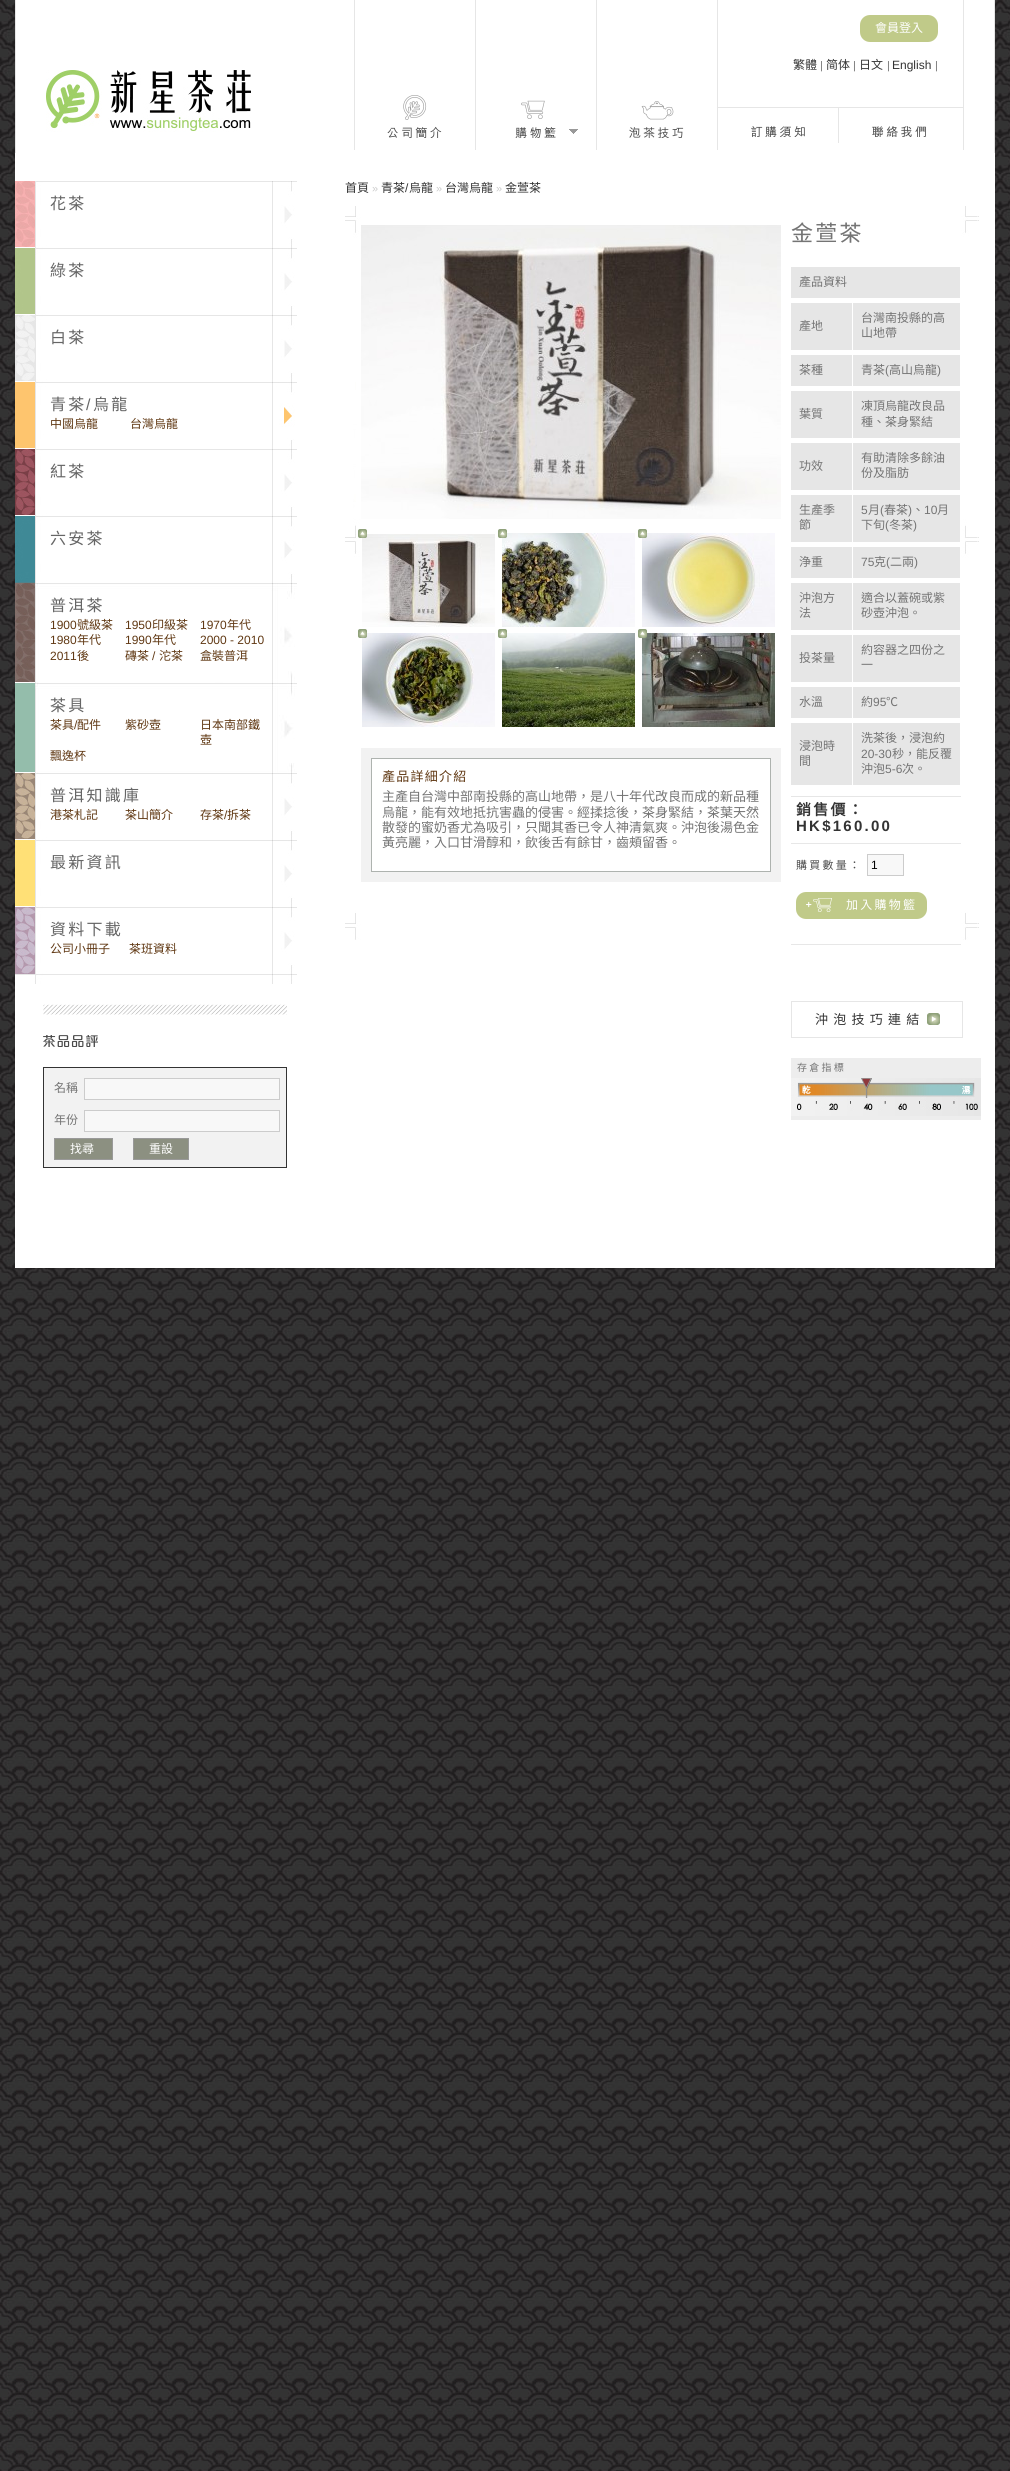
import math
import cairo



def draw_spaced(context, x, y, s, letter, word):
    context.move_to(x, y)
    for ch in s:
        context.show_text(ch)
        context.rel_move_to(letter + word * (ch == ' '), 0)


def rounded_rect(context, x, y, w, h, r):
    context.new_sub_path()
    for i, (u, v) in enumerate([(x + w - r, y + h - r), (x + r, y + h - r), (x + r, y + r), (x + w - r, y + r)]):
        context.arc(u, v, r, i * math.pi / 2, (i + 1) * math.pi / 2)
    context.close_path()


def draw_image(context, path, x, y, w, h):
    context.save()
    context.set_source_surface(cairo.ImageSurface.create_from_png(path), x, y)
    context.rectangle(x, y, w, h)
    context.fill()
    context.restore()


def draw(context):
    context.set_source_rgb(1, 1, 1)
    context.paint()
    draw_image(context, "images/1.png", 0, 0, 1010, 2471)
    context.set_source_rgb(1, 1, 1)
    context.rectangle(15, 0, 980, 1268)
    context.fill()
    context.set_source_rgb(230 / 255, 230 / 255, 230 / 255)
    context.rectangle(994, 0, 1, 153)
    context.fill()
    context.rectangle(15, 0, 1, 153)
    context.fill()
    context.rectangle(354, 0, 1, 150)
    context.fill()
    draw_image(context, "images/2.png", 387, 95, 55, 43)
    context.rectangle(475, 0, 1, 150)
    context.fill()
    draw_image(context, "images/3.png", 515, 100, 41, 38)
    draw_image(context, "images/4.png", 569, 129, 9, 5)
    context.rectangle(596, 0, 1, 150)
    context.fill()
    draw_image(context, "images/5.png", 629, 101, 55, 37)
    context.rectangle(963, 0, 1, 150)
    context.fill()
    context.rectangle(717, 0, 1, 150)
    context.fill()
    context.rectangle(718, 107, 245, 1)
    context.fill()
    context.set_source_rgb(192 / 255, 202 / 255, 137 / 255)
    rounded_rect(context, 860, 15, 78, 27, 10)
    context.fill()
    context.set_source_rgb(230 / 255, 230 / 255, 230 / 255)
    context.rectangle(838, 108, 1, 35)
    context.fill()
    draw_image(context, "images/6.png", 751, 126, 54, 11)
    draw_image(context, "images/7.png", 872, 126, 54, 11)
    draw_image(context, "images/8.png", 46, 70, 205, 62)
    draw_image(context, "images/9.png", 15, 181, 282, 67)
    draw_image(context, "images/10.png", 15, 181, 20, 66)
    draw_image(context, "images/9.png", 15, 248, 282, 67)
    draw_image(context, "images/11.png", 15, 248, 20, 66)
    draw_image(context, "images/9.png", 15, 315, 282, 67)
    draw_image(context, "images/12.png", 15, 315, 20, 66)
    draw_image(context, "images/13.png", 15, 382, 282, 67)
    context.set_source_rgb(254 / 255, 197 / 255, 110 / 255)
    context.rectangle(15, 382, 20, 66)
    context.fill()
    draw_image(context, "images/9.png", 15, 449, 282, 67)
    draw_image(context, "images/14.png", 15, 449, 20, 66)
    draw_image(context, "images/15.png", 35, 516, 262, 67)
    draw_image(context, "images/16.png", 15, 516, 20, 67)
    draw_image(context, "images/17.png", 15, 583, 282, 100)
    draw_image(context, "images/18.png", 15, 583, 20, 99)
    draw_image(context, "images/19.png", 15, 683, 282, 90)
    context.set_source_rgb(148 / 255, 189 / 255, 171 / 255)
    context.rectangle(15, 683, 20, 89)
    context.fill()
    draw_image(context, "images/9.png", 15, 773, 282, 67)
    draw_image(context, "images/20.png", 15, 773, 20, 66)
    draw_image(context, "images/9.png", 15, 840, 282, 67)
    draw_image(context, "images/21.png", 15, 840, 20, 66)
    draw_image(context, "images/15.png", 35, 907, 262, 67)
    draw_image(context, "images/22.png", 15, 907, 20, 67)
    draw_image(context, "images/23.png", 15, 974, 282, 10)
    draw_image(context, "images/24.png", 43, 1004, 244, 11)
    draw_image(context, "images/25.png", 43, 1035, 55, 12)
    context.set_source_rgb(242 / 255, 242 / 255, 242 / 255)
    context.rectangle(43.5, 1067.5, 243, 100)
    context.fill_preserve()
    context.set_source_rgb(51 / 255, 51 / 255, 51 / 255)
    context.set_line_width(1)
    context.stroke()
    context.set_source_rgb(248 / 255, 248 / 255, 248 / 255)
    context.rectangle(84.5, 1078.5, 195, 21)
    context.fill_preserve()
    context.set_source_rgb(204 / 255, 204 / 255, 204 / 255)
    context.stroke()
    context.set_source_rgb(248 / 255, 248 / 255, 248 / 255)
    context.rectangle(84.5, 1110.5, 195, 21)
    context.fill_preserve()
    context.set_source_rgb(204 / 255, 204 / 255, 204 / 255)
    context.stroke()
    context.set_source_rgb(140 / 255, 144 / 255, 129 / 255)
    context.rectangle(54.5, 1138.5, 58, 21)
    context.fill_preserve()
    context.set_source_rgb(153 / 255, 153 / 255, 153 / 255)
    context.stroke()
    context.set_source_rgb(140 / 255, 144 / 255, 129 / 255)
    context.rectangle(133.5, 1138.5, 55, 21)
    context.fill_preserve()
    context.set_source_rgb(153 / 255, 153 / 255, 153 / 255)
    context.stroke()
    draw_image(context, "images/26.png", 345, 206, 634, 734)
    draw_image(context, "images/27.png", 361, 225, 420, 294)
    draw_image(context, "images/29.png", 362, 534, 133, 93)
    draw_image(context, "images/28.png", 358, 529, 9, 9)
    draw_image(context, "images/31.png", 502, 533, 133, 94)
    draw_image(context, "images/30.png", 498, 529, 9, 9)
    draw_image(context, "images/33.png", 642, 533, 133, 94)
    draw_image(context, "images/32.png", 638, 529, 9, 9)
    draw_image(context, "images/35.png", 362, 633, 133, 94)
    draw_image(context, "images/34.png", 358, 629, 9, 9)
    draw_image(context, "images/37.png", 502, 633, 133, 94)
    draw_image(context, "images/36.png", 498, 629, 9, 9)
    draw_image(context, "images/39.png", 642, 633, 133, 94)
    draw_image(context, "images/38.png", 638, 629, 9, 9)
    context.set_source_rgb(242 / 255, 242 / 255, 242 / 255)
    context.rectangle(361, 748, 420, 134)
    context.fill()
    context.set_source_rgb(1, 1, 1)
    context.rectangle(371.5, 758.5, 399, 113)
    context.fill_preserve()
    context.set_source_rgb(174 / 255, 179 / 255, 175 / 255)
    context.stroke()
    context.set_source_rgb(230 / 255, 230 / 255, 230 / 255)
    context.rectangle(791, 267, 169, 518)
    context.fill()
    context.set_source_rgb(1, 1, 1)
    context.rectangle(852, 300, 1, 488)
    context.fill()
    context.rectangle(789, 298, 174, 5)
    context.fill()
    context.rectangle(789, 350, 174, 5)
    context.fill()
    context.rectangle(789, 386, 174, 5)
    context.fill()
    context.rectangle(789, 438, 174, 5)
    context.fill()
    context.rectangle(789, 490, 174, 5)
    context.fill()
    context.rectangle(789, 542, 174, 5)
    context.fill()
    context.rectangle(789, 578, 174, 5)
    context.fill()
    context.rectangle(789, 630, 174, 5)
    context.fill()
    context.rectangle(789, 682, 174, 5)
    context.fill()
    context.rectangle(789, 718, 174, 5)
    context.fill()
    context.set_source_rgb(230 / 255, 230 / 255, 230 / 255)
    context.rectangle(791, 796, 170, 1)
    context.fill()
    context.set_source_rgb(231 / 255, 231 / 255, 231 / 255)
    context.rectangle(791, 843, 170, 1)
    context.fill()
    context.rectangle(791, 944, 170, 1)
    context.fill()
    context.set_source_rgb(248 / 255, 248 / 255, 248 / 255)
    context.rectangle(867.5, 854.5, 36, 21)
    context.fill_preserve()
    context.set_source_rgb(204 / 255, 204 / 255, 204 / 255)
    context.stroke()
    context.set_source_rgb(192 / 255, 202 / 255, 137 / 255)
    rounded_rect(context, 796, 892, 131, 27, 10)
    context.fill()
    draw_image(context, "images/40.png", 806, 898, 26, 14)
    draw_image(context, "images/41.png", 927, 1013, 13, 12)
    context.rectangle(791.5, 1001.5, 171, 36)
    context.set_source_rgb(230 / 255, 230 / 255, 230 / 255)
    context.stroke()
    context.set_source_rgb(237 / 255, 237 / 255, 237 / 255)
    context.rectangle(791, 1058, 190, 62)
    context.fill()
    draw_image(context, "images/42.png", 791, 1078, 190, 38)
    draw_image(context, "images/43.png", 861, 1078, 11, 20)
    context.select_font_face("Noto Sans CJK HK")
    context.set_font_size(12)
    context.set_source_rgb(1, 1, 1)
    context.move_to(875, 32)
    context.show_text("會員登入")
    context.set_source_rgb(51 / 255, 51 / 255, 51 / 255)
    context.move_to(793, 69)
    context.show_text("繁體")
    context.select_font_face("Liberation Sans")
    context.set_font_size(11)
    context.set_source_rgb(116 / 255, 116 / 255, 116 / 255)
    context.move_to(820, 69)
    context.show_text("|")
    context.select_font_face("Noto Sans CJK HK")
    context.set_font_size(12)
    context.set_source_rgb(51 / 255, 51 / 255, 51 / 255)
    context.move_to(826, 69)
    context.show_text("简体")
    context.select_font_face("Liberation Sans")
    context.set_font_size(11)
    context.set_source_rgb(116 / 255, 116 / 255, 116 / 255)
    context.move_to(853, 69)
    context.show_text("|")
    context.select_font_face("Noto Sans CJK HK")
    context.set_font_size(12)
    context.set_source_rgb(51 / 255, 51 / 255, 51 / 255)
    context.move_to(859, 69)
    context.show_text("日文")
    context.select_font_face("Liberation Sans")
    context.set_font_size(11)
    context.set_source_rgb(116 / 255, 116 / 255, 116 / 255)
    context.move_to(887, 69)
    context.show_text("|")
    context.set_font_size(12)
    context.set_source_rgb(51 / 255, 51 / 255, 51 / 255)
    context.move_to(892, 69)
    context.show_text("English")
    context.set_font_size(11)
    context.set_source_rgb(116 / 255, 116 / 255, 116 / 255)
    context.move_to(935, 69)
    context.show_text("|")
    context.select_font_face("Noto Sans CJK HK")
    context.set_font_size(16)
    context.set_source_rgb(102 / 255, 102 / 255, 102 / 255)
    draw_spaced(context, 50, 209, "花茶", 2.25, 0)
    draw_spaced(context, 50, 276, "綠茶", 2.25, 0)
    draw_spaced(context, 50, 343, "白茶", 2.25, 0)
    draw_spaced(context, 50, 410, "青茶", 2.25, 0)
    context.select_font_face("Liberation Sans")
    draw_spaced(context, 86, 410, "/", 2.25, 0)
    context.select_font_face("Noto Sans CJK HK")
    draw_spaced(context, 93, 410, "烏龍", 2.25, 0)
    context.set_font_size(12)
    context.set_source_rgb(96 / 255, 56 / 255, 19 / 255)
    context.move_to(50, 428)
    context.show_text("中國烏龍")
    context.move_to(130, 428)
    context.show_text("台灣烏龍")
    context.set_font_size(16)
    context.set_source_rgb(102 / 255, 102 / 255, 102 / 255)
    draw_spaced(context, 50, 477, "紅茶", 2.25, 0)
    draw_spaced(context, 50, 544, "六安茶", 2.25, 0)
    draw_spaced(context, 50, 611, "普洱茶", 2.25, 0)
    context.select_font_face("Liberation Sans")
    context.set_font_size(12)
    context.set_source_rgb(96 / 255, 56 / 255, 19 / 255)
    context.move_to(50, 629)
    context.show_text("1900")
    context.select_font_face("Noto Sans CJK HK")
    context.move_to(77, 629)
    context.show_text("號級茶")
    context.select_font_face("Liberation Sans")
    context.move_to(125, 629)
    context.show_text("1950")
    context.select_font_face("Noto Sans CJK HK")
    context.move_to(152, 629)
    context.show_text("印級茶")
    context.select_font_face("Liberation Sans")
    context.move_to(200, 629)
    context.show_text("1970")
    context.select_font_face("Noto Sans CJK HK")
    context.move_to(227, 629)
    context.show_text("年代")
    context.select_font_face("Liberation Sans")
    context.move_to(50, 644)
    context.show_text("1980")
    context.select_font_face("Noto Sans CJK HK")
    context.move_to(77, 644)
    context.show_text("年代")
    context.select_font_face("Liberation Sans")
    context.move_to(125, 644)
    context.show_text("1990")
    context.select_font_face("Noto Sans CJK HK")
    context.move_to(152, 644)
    context.show_text("年代")
    context.select_font_face("Liberation Sans")
    context.move_to(200, 644)
    context.show_text("2000 - 2010")
    context.move_to(50, 660)
    context.show_text("2011")
    context.select_font_face("Noto Sans CJK HK")
    context.move_to(77, 660)
    context.show_text("後")
    context.move_to(125, 660)
    context.show_text("磚茶")
    context.select_font_face("Liberation Sans")
    context.move_to(152, 660)
    context.show_text("/")
    context.select_font_face("Noto Sans CJK HK")
    context.move_to(159, 660)
    context.show_text("沱茶")
    context.move_to(200, 660)
    context.show_text("盒裝普洱")
    context.set_font_size(16)
    context.set_source_rgb(102 / 255, 102 / 255, 102 / 255)
    draw_spaced(context, 50, 711, "茶具", 2.25, 0)
    context.set_font_size(12)
    context.set_source_rgb(96 / 255, 56 / 255, 19 / 255)
    context.move_to(50, 729)
    context.show_text("茶具")
    context.select_font_face("Liberation Sans")
    context.move_to(74, 729)
    context.show_text("/")
    context.select_font_face("Noto Sans CJK HK")
    context.move_to(77, 729)
    context.show_text("配件")
    context.move_to(125, 729)
    context.show_text("紫砂壺")
    context.move_to(200, 729)
    context.show_text("日本南部鐵")
    context.move_to(200, 744)
    context.show_text("壺")
    context.move_to(50, 760)
    context.show_text("飄逸杯")
    context.set_font_size(16)
    context.set_source_rgb(102 / 255, 102 / 255, 102 / 255)
    draw_spaced(context, 50, 801, "普洱知識庫", 2.25, 0)
    context.set_font_size(12)
    context.set_source_rgb(96 / 255, 56 / 255, 19 / 255)
    context.move_to(50, 819)
    context.show_text("港茶札記")
    context.move_to(125, 819)
    context.show_text("茶山簡介")
    context.move_to(200, 819)
    context.show_text("存茶")
    context.select_font_face("Liberation Sans")
    context.move_to(224, 819)
    context.show_text("/")
    context.select_font_face("Noto Sans CJK HK")
    context.move_to(227, 819)
    context.show_text("拆茶")
    context.set_font_size(16)
    context.set_source_rgb(102 / 255, 102 / 255, 102 / 255)
    draw_spaced(context, 50, 868, "最新資訊", 2.25, 0)
    draw_spaced(context, 50, 935, "資料下載", 2.25, 0)
    context.set_font_size(12)
    context.set_source_rgb(96 / 255, 56 / 255, 19 / 255)
    context.move_to(50, 953)
    context.show_text("公司小冊子")
    context.move_to(129, 953)
    context.show_text("茶班資料")
    context.set_source_rgb(116 / 255, 116 / 255, 116 / 255)
    context.move_to(54, 1092)
    context.show_text("名稱")
    context.move_to(54, 1124)
    context.show_text("年份")
    context.set_source_rgb(1, 1, 1)
    context.move_to(70, 1153)
    context.show_text("找尋")
    context.move_to(149, 1153)
    context.show_text("重設")
    context.set_source_rgb(51 / 255, 51 / 255, 51 / 255)
    context.move_to(345, 192)
    context.show_text("首頁")
    context.select_font_face("Liberation Sans")
    context.set_font_size(11)
    context.set_source_rgb(204 / 255, 204 / 255, 204 / 255)
    context.move_to(372, 192)
    context.show_text("»")
    context.select_font_face("Noto Sans CJK HK")
    context.set_font_size(12)
    context.set_source_rgb(51 / 255, 51 / 255, 51 / 255)
    context.move_to(381, 192)
    context.show_text("青茶")
    context.select_font_face("Liberation Sans")
    context.move_to(405, 192)
    context.show_text("/")
    context.select_font_face("Noto Sans CJK HK")
    context.move_to(409, 192)
    context.show_text("烏龍")
    context.select_font_face("Liberation Sans")
    context.set_font_size(11)
    context.set_source_rgb(204 / 255, 204 / 255, 204 / 255)
    context.move_to(436, 192)
    context.show_text("»")
    context.select_font_face("Noto Sans CJK HK")
    context.set_font_size(12)
    context.set_source_rgb(51 / 255, 51 / 255, 51 / 255)
    context.move_to(445, 192)
    context.show_text("台灣烏龍")
    context.select_font_face("Liberation Sans")
    context.set_font_size(11)
    context.set_source_rgb(204 / 255, 204 / 255, 204 / 255)
    context.move_to(496, 192)
    context.show_text("»")
    context.select_font_face("Noto Sans CJK HK")
    context.set_font_size(12)
    context.set_source_rgb(51 / 255, 51 / 255, 51 / 255)
    context.move_to(505, 192)
    context.show_text("金萱茶")
    context.set_font_size(13)
    context.set_source_rgb(96 / 255, 56 / 255, 19 / 255)
    draw_spaced(context, 382, 781, "產品詳細介紹", 1.25, 0)
    context.set_source_rgb(116 / 255, 116 / 255, 116 / 255)
    context.move_to(382, 801)
    context.show_text("主產自台灣中部南投縣的高山地帶，是八十年代改良而成的新品種")
    context.move_to(382, 817)
    context.show_text("烏龍，能有效地抵抗害蟲的侵害。經揉捻後，茶身緊結，茶葉天然")
    context.move_to(382, 832)
    context.show_text("散發的蜜奶香尤為吸引，只聞其香已令人神清氣爽。沖泡後湯色金")
    context.move_to(382, 847)
    context.show_text("黃亮麗，入口甘滑醇和，飲後舌有餘甘，齒頰留香。")
    context.set_font_size(22)
    draw_spaced(context, 791, 241, "金萱茶", 2.25, 0)
    context.set_font_size(12)
    context.move_to(799, 286)
    context.show_text("產品資料")
    context.move_to(799, 330)
    context.show_text("產地")
    context.move_to(861, 322)
    context.show_text("台灣南投縣的高")
    context.move_to(861, 337)
    context.show_text("山地帶")
    context.move_to(799, 374)
    context.show_text("茶種")
    context.move_to(861, 374)
    context.show_text("青茶")
    context.select_font_face("Liberation Sans")
    context.move_to(885, 374)
    context.show_text("(")
    context.select_font_face("Noto Sans CJK HK")
    context.move_to(889, 374)
    context.show_text("高山烏龍")
    context.select_font_face("Liberation Sans")
    context.move_to(937, 374)
    context.show_text(")")
    context.select_font_face("Noto Sans CJK HK")
    context.move_to(799, 418)
    context.show_text("葉質")
    context.move_to(861, 410)
    context.show_text("凍頂烏龍改良品")
    context.move_to(861, 426)
    context.show_text("種、茶身緊結")
    context.move_to(799, 470)
    context.show_text("功效")
    context.move_to(861, 462)
    context.show_text("有助清除多餘油")
    context.move_to(861, 477)
    context.show_text("份及脂肪")
    context.move_to(799, 514)
    context.show_text("生產季")
    context.move_to(799, 529)
    context.show_text("節")
    context.select_font_face("Liberation Sans")
    context.move_to(861, 514)
    context.show_text("5")
    context.select_font_face("Noto Sans CJK HK")
    context.move_to(868, 514)
    context.show_text("月")
    context.select_font_face("Liberation Sans")
    context.move_to(880, 514)
    context.show_text("(")
    context.select_font_face("Noto Sans CJK HK")
    context.move_to(884, 514)
    context.show_text("春茶")
    context.select_font_face("Liberation Sans")
    context.move_to(908, 514)
    context.show_text(")")
    context.select_font_face("Noto Sans CJK HK")
    context.move_to(912, 514)
    context.show_text("、")
    context.select_font_face("Liberation Sans")
    context.move_to(924, 514)
    context.show_text("10")
    context.select_font_face("Noto Sans CJK HK")
    context.move_to(937, 514)
    context.show_text("月")
    context.move_to(861, 529)
    context.show_text("下旬")
    context.select_font_face("Liberation Sans")
    context.move_to(885, 529)
    context.show_text("(")
    context.select_font_face("Noto Sans CJK HK")
    context.move_to(889, 529)
    context.show_text("冬茶")
    context.select_font_face("Liberation Sans")
    context.move_to(913, 529)
    context.show_text(")")
    context.select_font_face("Noto Sans CJK HK")
    context.move_to(799, 566)
    context.show_text("浄重")
    context.select_font_face("Liberation Sans")
    context.move_to(861, 566)
    context.show_text("75")
    context.select_font_face("Noto Sans CJK HK")
    context.move_to(874, 566)
    context.show_text("克")
    context.select_font_face("Liberation Sans")
    context.move_to(886, 566)
    context.show_text("(")
    context.select_font_face("Noto Sans CJK HK")
    context.move_to(890, 566)
    context.show_text("二兩")
    context.select_font_face("Liberation Sans")
    context.move_to(914, 566)
    context.show_text(")")
    context.select_font_face("Noto Sans CJK HK")
    context.move_to(799, 602)
    context.show_text("沖泡方")
    context.move_to(799, 617)
    context.show_text("法")
    context.move_to(861, 602)
    context.show_text("適合以蓋碗或紫")
    context.move_to(861, 617)
    context.show_text("砂壺沖泡。")
    context.move_to(799, 662)
    context.show_text("投茶量")
    context.move_to(861, 654)
    context.show_text("約容器之四份之")
    context.move_to(861, 669)
    context.show_text("一")
    context.move_to(799, 706)
    context.show_text("水溫")
    context.move_to(861, 706)
    context.show_text("約")
    context.select_font_face("Liberation Sans")
    context.move_to(873, 706)
    context.show_text("95")
    context.select_font_face("Noto Sans CJK HK")
    context.move_to(886, 706)
    context.show_text("℃")
    context.move_to(799, 750)
    context.show_text("浸泡時")
    context.move_to(799, 765)
    context.show_text("間")
    context.move_to(861, 742)
    context.show_text("洗茶後，浸泡約")
    context.select_font_face("Liberation Sans")
    context.move_to(861, 758)
    context.show_text("20-30")
    context.select_font_face("Noto Sans CJK HK")
    context.move_to(892, 758)
    context.show_text("秒，能反覆")
    context.move_to(861, 773)
    context.show_text("沖泡")
    context.select_font_face("Liberation Sans")
    context.move_to(885, 773)
    context.show_text("5-6")
    context.select_font_face("Noto Sans CJK HK")
    context.move_to(902, 773)
    context.show_text("次。")
    context.select_font_face("Noto Sans CJK HK", cairo.FontSlant.NORMAL, cairo.FontWeight.BOLD)
    context.set_font_size(15)
    context.set_source_rgb(51 / 255, 51 / 255, 51 / 255)
    draw_spaced(context, 796, 815, "銷售價：", 2.25, 0)
    context.select_font_face("Liberation Sans", cairo.FontSlant.NORMAL, cairo.FontWeight.BOLD)
    draw_spaced(context, 796, 831, "HK$160.00", 2.25, 0)
    context.select_font_face("Noto Sans CJK HK")
    context.set_font_size(11)
    context.set_source_rgb(77 / 255, 77 / 255, 77 / 255)
    draw_spaced(context, 796, 869, "購買數量：", 2.25, 0)
    context.select_font_face("Liberation Sans")
    context.set_font_size(12)
    context.set_source_rgb(0, 0, 0)
    context.move_to(871, 869)
    context.show_text("1")
    context.select_font_face("Noto Sans CJK HK")
    context.set_source_rgb(1, 1, 1)
    draw_spaced(context, 846, 909, "加入購物籃", 2.25, 0)
    context.set_font_size(13)
    context.set_source_rgb(51 / 255, 51 / 255, 51 / 255)
    draw_spaced(context, 815, 1024, "沖泡技巧連結", 5.25, 0)
    context.set_font_size(10)
    context.set_source_rgb(116 / 255, 116 / 255, 116 / 255)
    draw_spaced(context, 797, 1071, "存倉指標", 2.25, 0)


surface = cairo.ImageSurface(cairo.Format.RGB24, 1010, 2471)
context = cairo.Context(surface)
options = cairo.FontOptions()
options.set_hint_metrics(cairo.HintMetrics.OFF)
options.set_hint_style(cairo.HintStyle.NONE)
context.set_font_options(options)
context.set_miter_limit(4)
draw(context)
surface.write_to_png("out.png")
